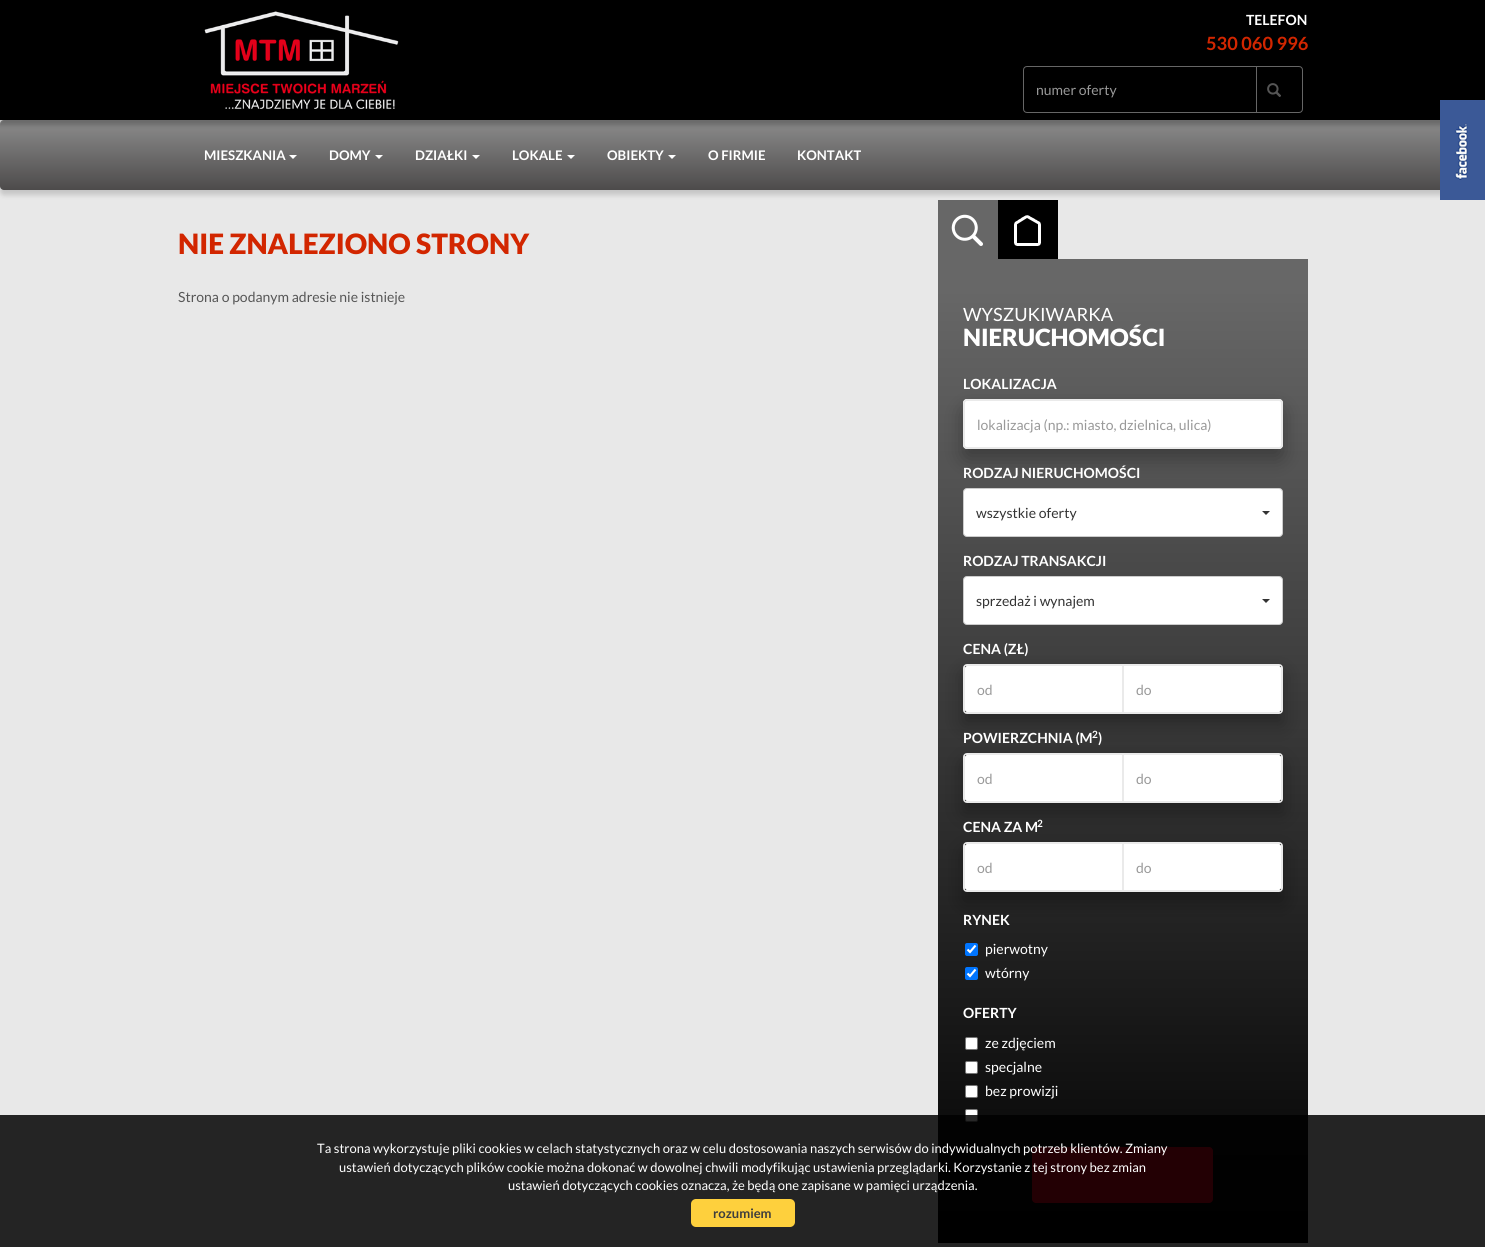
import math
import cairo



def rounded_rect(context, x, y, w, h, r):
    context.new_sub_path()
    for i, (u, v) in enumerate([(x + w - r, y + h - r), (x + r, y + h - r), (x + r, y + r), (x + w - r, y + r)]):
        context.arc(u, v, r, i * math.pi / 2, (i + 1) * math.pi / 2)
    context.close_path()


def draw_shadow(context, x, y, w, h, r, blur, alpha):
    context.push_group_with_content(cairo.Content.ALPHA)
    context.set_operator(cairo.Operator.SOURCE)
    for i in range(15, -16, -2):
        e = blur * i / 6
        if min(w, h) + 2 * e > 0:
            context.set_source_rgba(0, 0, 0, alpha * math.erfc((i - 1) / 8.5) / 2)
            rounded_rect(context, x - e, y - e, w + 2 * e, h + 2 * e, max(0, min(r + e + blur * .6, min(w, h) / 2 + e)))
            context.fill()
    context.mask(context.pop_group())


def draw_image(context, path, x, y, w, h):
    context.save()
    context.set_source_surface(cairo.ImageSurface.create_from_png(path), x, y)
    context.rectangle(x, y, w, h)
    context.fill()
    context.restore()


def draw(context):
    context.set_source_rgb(232 / 255, 232 / 255, 232 / 255)
    context.paint()
    context.set_source_rgb(103 / 255, 103 / 255, 103 / 255)
    context.rectangle(938, 200, 60, 59)
    context.fill()
    context.set_source_rgb(0, 0, 0)
    context.rectangle(998, 200, 60, 59)
    context.fill()
    context.set_source_rgb(0, 0, 0)
    draw_shadow(context, 0, 125, 1485, 70, 4, 2.5, 0.15)
    gradient = cairo.LinearGradient(743, 120, 743, 190)
    gradient.add_color_stop_rgba(0, 140 / 255, 140 / 255, 140 / 255, 1)
    gradient.add_color_stop_rgba(1, 77 / 255, 75 / 255, 75 / 255, 1)
    context.set_source(gradient)
    rounded_rect(context, 0, 120, 1485, 70, 4)
    context.fill()
    context.set_source_rgb(0, 0, 0)
    draw_shadow(context, 0, 5, 1485, 120, 0, 2.5, 0.25)
    context.set_source_rgb(0, 0, 0)
    context.rectangle(0, 0, 1485, 120)
    context.fill()
    draw_image(context, "images/1.png", 204, 11, 195, 98)
    context.new_path()
    context.move_to(1247.5, 66.5)
    context.line_to(1299, 66.5)
    context.curve_to(1301, 66.5, 1302.5, 68, 1302.5, 70)
    context.line_to(1302.5, 109)
    context.curve_to(1302.5, 111, 1301, 112.5, 1299, 112.5)
    context.line_to(1247.5, 112.5)
    context.close_path()
    context.set_source_rgb(102 / 255, 102 / 255, 102 / 255)
    context.set_line_width(1)
    context.stroke()
    context.set_source_rgb(0, 0, 0)
    context.new_path()
    context.move_to(1027, 66.5)
    context.line_to(1256.5, 66.5)
    context.line_to(1256.5, 112.5)
    context.line_to(1027, 112.5)
    context.curve_to(1025, 112.5, 1023.5, 111, 1023.5, 109)
    context.line_to(1023.5, 70)
    context.curve_to(1023.5, 68, 1025, 66.5, 1027, 66.5)
    context.close_path()
    context.fill_preserve()
    context.set_source_rgb(102 / 255, 102 / 255, 102 / 255)
    context.stroke()
    draw_image(context, "images/2.png", 1267, 83, 14, 14)
    context.set_source_rgb(1, 1, 1)
    context.new_path()
    context.move_to(289, 155)
    context.line_to(297, 155)
    context.line_to(293, 159)
    context.close_path()
    context.fill()
    context.new_path()
    context.move_to(375, 155)
    context.line_to(383, 155)
    context.line_to(379, 159)
    context.close_path()
    context.fill()
    context.new_path()
    context.move_to(472, 155)
    context.line_to(480, 155)
    context.line_to(476, 159)
    context.close_path()
    context.fill()
    context.new_path()
    context.move_to(567, 155)
    context.line_to(575, 155)
    context.line_to(571, 159)
    context.close_path()
    context.fill()
    context.new_path()
    context.move_to(668, 155)
    context.line_to(676, 155)
    context.line_to(672, 159)
    context.close_path()
    context.fill()
    context.set_source_rgb(59 / 255, 89 / 255, 151 / 255)
    context.rectangle(1440, 100, 45, 100)
    context.fill()
    draw_image(context, "images/3.png", 1454, 123, 14, 57)
    draw_image(context, "images/4.png", 951, 214, 32, 32)
    draw_image(context, "images/5.png", 1014, 215, 27, 31)
    context.set_source_rgb(103 / 255, 103 / 255, 103 / 255)
    context.rectangle(938, 259, 370, 30)
    context.fill()
    gradient = cairo.LinearGradient(1123, 289, 1123, 1243)
    gradient.add_color_stop_rgba(0, 103 / 255, 103 / 255, 103 / 255, 1)
    gradient.add_color_stop_rgba(1, 0, 0, 0, 1)
    context.set_source(gradient)
    context.rectangle(938, 289, 370, 954)
    context.fill()
    context.set_source_rgb(1, 1, 1)
    rounded_rect(context, 963, 399, 320, 50, 4)
    context.fill()
    context.save()
    context.set_fill_rule(cairo.FillRule.EVEN_ODD)
    context.new_path()
    context.move_to(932, 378)
    context.line_to(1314, 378)
    context.line_to(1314, 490)
    context.line_to(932, 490)
    context.close_path()
    context.move_to(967, 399)
    context.line_to(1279, 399)
    context.curve_to(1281, 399, 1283, 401, 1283, 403)
    context.line_to(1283, 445)
    context.curve_to(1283, 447, 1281, 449, 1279, 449)
    context.line_to(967, 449)
    context.curve_to(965, 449, 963, 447, 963, 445)
    context.line_to(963, 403)
    context.curve_to(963, 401, 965, 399, 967, 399)
    context.close_path()
    context.clip()
    context.set_source_rgb(0, 0, 0)
    draw_shadow(context, 963, 409, 320, 50, 4, 10, 0.3)
    context.restore()
    rounded_rect(context, 964, 400, 318, 48, 3)
    context.set_source_rgb(234 / 255, 234 / 255, 234 / 255)
    context.set_line_width(2)
    context.stroke()
    context.set_source_rgb(1, 1, 1)
    rounded_rect(context, 963.5, 488.5, 319, 48, 3.5)
    context.fill_preserve()
    context.set_source_rgb(204 / 255, 204 / 255, 204 / 255)
    context.set_line_width(1)
    context.stroke()
    context.set_source_rgb(51 / 255, 51 / 255, 51 / 255)
    context.new_path()
    context.move_to(1262, 511)
    context.line_to(1270, 511)
    context.line_to(1266, 515)
    context.close_path()
    context.fill()
    context.set_source_rgb(1, 1, 1)
    rounded_rect(context, 963.5, 576.5, 319, 48, 3.5)
    context.fill_preserve()
    context.set_source_rgb(204 / 255, 204 / 255, 204 / 255)
    context.stroke()
    context.set_source_rgb(51 / 255, 51 / 255, 51 / 255)
    context.new_path()
    context.move_to(1262, 599)
    context.line_to(1270, 599)
    context.line_to(1266, 603)
    context.close_path()
    context.fill()
    context.set_source_rgb(0, 0, 0)
    draw_shadow(context, 963, 674, 320, 50, 0, 10, 0.3)
    context.set_source_rgb(1, 1, 1)
    context.new_path()
    context.move_to(967, 666)
    context.line_to(1122, 666)
    context.line_to(1122, 712)
    context.line_to(967, 712)
    context.curve_to(966, 712, 965, 711, 965, 710)
    context.line_to(965, 668)
    context.curve_to(965, 667, 966, 666, 967, 666)
    context.close_path()
    context.fill()
    context.new_path()
    context.move_to(967, 664.5)
    context.line_to(1122.5, 664.5)
    context.line_to(1122.5, 713.5)
    context.line_to(967, 713.5)
    context.curve_to(965, 713.5, 963.5, 712, 963.5, 710)
    context.line_to(963.5, 668)
    context.curve_to(963.5, 666, 965, 664.5, 967, 664.5)
    context.close_path()
    context.set_source_rgb(234 / 255, 234 / 255, 234 / 255)
    context.stroke()
    context.rectangle(965, 665, 158, 1)
    context.fill()
    context.rectangle(965, 712, 158, 1)
    context.fill()
    context.rectangle(964, 666, 1, 46)
    context.fill()
    context.set_source_rgb(1, 1, 1)
    context.new_path()
    context.move_to(1124, 666)
    context.line_to(1279, 666)
    context.curve_to(1280, 666, 1281, 667, 1281, 668)
    context.line_to(1281, 710)
    context.curve_to(1281, 711, 1280, 712, 1279, 712)
    context.line_to(1124, 712)
    context.close_path()
    context.fill()
    context.new_path()
    context.move_to(1123.5, 664.5)
    context.line_to(1279, 664.5)
    context.curve_to(1281, 664.5, 1282.5, 666, 1282.5, 668)
    context.line_to(1282.5, 710)
    context.curve_to(1282.5, 712, 1281, 713.5, 1279, 713.5)
    context.line_to(1123.5, 713.5)
    context.close_path()
    context.set_source_rgb(234 / 255, 234 / 255, 234 / 255)
    context.stroke()
    context.rectangle(1123, 665, 158, 1)
    context.fill()
    context.rectangle(1281, 666, 1, 46)
    context.fill()
    context.rectangle(1123, 712, 158, 1)
    context.fill()
    context.set_source_rgb(0, 0, 0)
    draw_shadow(context, 963, 763, 320, 50, 0, 10, 0.3)
    context.set_source_rgb(1, 1, 1)
    context.new_path()
    context.move_to(967, 755)
    context.line_to(1122, 755)
    context.line_to(1122, 801)
    context.line_to(967, 801)
    context.curve_to(966, 801, 965, 800, 965, 799)
    context.line_to(965, 757)
    context.curve_to(965, 756, 966, 755, 967, 755)
    context.close_path()
    context.fill()
    context.new_path()
    context.move_to(967, 753.5)
    context.line_to(1122.5, 753.5)
    context.line_to(1122.5, 802.5)
    context.line_to(967, 802.5)
    context.curve_to(965, 802.5, 963.5, 801, 963.5, 799)
    context.line_to(963.5, 757)
    context.curve_to(963.5, 755, 965, 753.5, 967, 753.5)
    context.close_path()
    context.set_source_rgb(234 / 255, 234 / 255, 234 / 255)
    context.stroke()
    context.rectangle(965, 754, 158, 1)
    context.fill()
    context.rectangle(965, 801, 158, 1)
    context.fill()
    context.rectangle(964, 755, 1, 46)
    context.fill()
    context.set_source_rgb(1, 1, 1)
    context.new_path()
    context.move_to(1124, 755)
    context.line_to(1279, 755)
    context.curve_to(1280, 755, 1281, 756, 1281, 757)
    context.line_to(1281, 799)
    context.curve_to(1281, 800, 1280, 801, 1279, 801)
    context.line_to(1124, 801)
    context.close_path()
    context.fill()
    context.new_path()
    context.move_to(1123.5, 753.5)
    context.line_to(1279, 753.5)
    context.curve_to(1281, 753.5, 1282.5, 755, 1282.5, 757)
    context.line_to(1282.5, 799)
    context.curve_to(1282.5, 801, 1281, 802.5, 1279, 802.5)
    context.line_to(1123.5, 802.5)
    context.close_path()
    context.set_source_rgb(234 / 255, 234 / 255, 234 / 255)
    context.stroke()
    context.rectangle(1123, 754, 158, 1)
    context.fill()
    context.rectangle(1281, 755, 1, 46)
    context.fill()
    context.rectangle(1123, 801, 158, 1)
    context.fill()
    context.set_source_rgb(0, 0, 0)
    draw_shadow(context, 963, 852, 320, 50, 0, 10, 0.3)
    context.set_source_rgb(1, 1, 1)
    context.new_path()
    context.move_to(967, 844)
    context.line_to(1122, 844)
    context.line_to(1122, 890)
    context.line_to(967, 890)
    context.curve_to(966, 890, 965, 889, 965, 888)
    context.line_to(965, 846)
    context.curve_to(965, 845, 966, 844, 967, 844)
    context.close_path()
    context.fill()
    context.new_path()
    context.move_to(967, 842.5)
    context.line_to(1122.5, 842.5)
    context.line_to(1122.5, 891.5)
    context.line_to(967, 891.5)
    context.curve_to(965, 891.5, 963.5, 890, 963.5, 888)
    context.line_to(963.5, 846)
    context.curve_to(963.5, 844, 965, 842.5, 967, 842.5)
    context.close_path()
    context.set_source_rgb(234 / 255, 234 / 255, 234 / 255)
    context.stroke()
    context.rectangle(965, 843, 158, 1)
    context.fill()
    context.rectangle(965, 890, 158, 1)
    context.fill()
    context.rectangle(964, 844, 1, 46)
    context.fill()
    context.set_source_rgb(1, 1, 1)
    context.new_path()
    context.move_to(1124, 844)
    context.line_to(1279, 844)
    context.curve_to(1280, 844, 1281, 845, 1281, 846)
    context.line_to(1281, 888)
    context.curve_to(1281, 889, 1280, 890, 1279, 890)
    context.line_to(1124, 890)
    context.close_path()
    context.fill()
    context.new_path()
    context.move_to(1123.5, 842.5)
    context.line_to(1279, 842.5)
    context.curve_to(1281, 842.5, 1282.5, 844, 1282.5, 846)
    context.line_to(1282.5, 888)
    context.curve_to(1282.5, 890, 1281, 891.5, 1279, 891.5)
    context.line_to(1123.5, 891.5)
    context.close_path()
    context.set_source_rgb(234 / 255, 234 / 255, 234 / 255)
    context.stroke()
    context.rectangle(1123, 843, 158, 1)
    context.fill()
    context.rectangle(1281, 844, 1, 46)
    context.fill()
    context.rectangle(1123, 890, 158, 1)
    context.fill()
    context.set_source_rgb(0, 117 / 255, 1)
    rounded_rect(context, 965, 943, 13, 13, 2)
    context.fill()
    context.new_path()
    context.move_to(967.5, 949.5)
    context.line_to(970, 952)
    context.line_to(975.5, 945.5)
    context.set_source_rgb(1, 1, 1)
    context.set_line_width(2.1)
    context.stroke()
    context.set_source_rgb(0, 117 / 255, 1)
    rounded_rect(context, 965, 967, 13, 13, 2)
    context.fill()
    context.new_path()
    context.move_to(967.5, 973.5)
    context.line_to(970, 976)
    context.line_to(975.5, 969.5)
    context.set_source_rgb(1, 1, 1)
    context.stroke()
    rounded_rect(context, 965.5, 1037.5, 12, 12, 1.5)
    context.fill_preserve()
    context.set_source_rgb(118 / 255, 118 / 255, 118 / 255)
    context.set_line_width(1)
    context.stroke()
    context.set_source_rgb(1, 1, 1)
    rounded_rect(context, 965.5, 1061.5, 12, 12, 1.5)
    context.fill_preserve()
    context.set_source_rgb(118 / 255, 118 / 255, 118 / 255)
    context.stroke()
    context.set_source_rgb(1, 1, 1)
    rounded_rect(context, 965.5, 1085.5, 12, 12, 1.5)
    context.fill_preserve()
    context.set_source_rgb(118 / 255, 118 / 255, 118 / 255)
    context.stroke()
    context.set_source_rgb(1, 1, 1)
    rounded_rect(context, 965.5, 1109.5, 12, 12, 1.5)
    context.fill_preserve()
    context.set_source_rgb(118 / 255, 118 / 255, 118 / 255)
    context.stroke()
    context.set_source_rgb(226 / 255, 0, 26 / 255)
    rounded_rect(context, 1032, 1147, 181, 56, 4)
    context.fill()
    context.set_source_rgba(0, 0, 0, 0.84)
    context.rectangle(0, 1115, 1485, 132)
    context.fill()
    context.set_source_rgb(254 / 255, 208 / 255, 61 / 255)
    rounded_rect(context, 691, 1199, 104, 28, 5)
    context.fill()
    context.select_font_face("Lato", cairo.FontSlant.NORMAL, cairo.FontWeight.BOLD)
    context.set_font_size(14)
    context.set_source_rgb(1, 1, 1)
    context.move_to(1246, 25)
    context.show_text("TELEFON")
    context.set_font_size(18.25)
    context.set_source_rgb(210 / 255, 38 / 255, 0)
    context.move_to(1206, 50)
    context.show_text("530 060 996")
    context.select_font_face("Lato")
    context.set_font_size(14)
    context.set_source_rgb(153 / 255, 153 / 255, 153 / 255)
    context.move_to(1036, 95)
    context.show_text("numer oferty")
    context.select_font_face("Lato", cairo.FontSlant.NORMAL, cairo.FontWeight.BOLD)
    context.set_font_size(13.25)
    context.set_source_rgb(1, 1, 1)
    context.move_to(204, 160)
    context.show_text("MIESZKANIA")
    context.move_to(329, 160)
    context.show_text("DOMY")
    context.move_to(415, 160)
    context.show_text("DZIAŁKI")
    context.move_to(512, 160)
    context.show_text("LOKALE")
    context.move_to(607, 160)
    context.show_text("OBIEKTY")
    context.move_to(708, 160)
    context.show_text("O FIRMIE")
    context.move_to(797, 160)
    context.show_text("KONTAKT")
    context.select_font_face("Lato Black")
    context.set_font_size(28)
    context.set_source_rgb(210 / 255, 38 / 255, 0)
    context.move_to(178, 254)
    context.show_text("NIE ZNALEZIONO STRONY")
    context.select_font_face("Lato")
    context.set_font_size(14)
    context.set_source_rgb(86 / 255, 86 / 255, 86 / 255)
    context.move_to(178, 302)
    context.show_text("Strona o podanym adresie nie istnieje")
    context.set_font_size(18.25)
    context.set_source_rgb(1, 1, 1)
    context.move_to(963, 321)
    context.show_text("WYSZUKIWARKA")
    context.select_font_face("Lato Black")
    context.set_font_size(23.75)
    context.move_to(963, 346)
    context.show_text("NIERUCHOMOŚCI")
    context.select_font_face("Lato", cairo.FontSlant.NORMAL, cairo.FontWeight.BOLD)
    context.set_font_size(14)
    context.move_to(963, 389)
    context.show_text("LOKALIZACJA")
    context.select_font_face("Lato")
    context.set_source_rgb(153 / 255, 153 / 255, 153 / 255)
    context.move_to(977, 430)
    context.show_text("lokalizacja (np.: miasto, dzielnica, ulica)")
    context.select_font_face("Lato", cairo.FontSlant.NORMAL, cairo.FontWeight.BOLD)
    context.set_source_rgb(1, 1, 1)
    context.move_to(963, 478)
    context.show_text("RODZAJ NIERUCHOMOŚCI")
    context.select_font_face("Lato")
    context.set_source_rgb(51 / 255, 51 / 255, 51 / 255)
    context.move_to(976, 518)
    context.show_text("wszystkie oferty")
    context.select_font_face("Lato", cairo.FontSlant.NORMAL, cairo.FontWeight.BOLD)
    context.set_source_rgb(1, 1, 1)
    context.move_to(963, 566)
    context.show_text("RODZAJ TRANSAKCJI")
    context.select_font_face("Lato")
    context.set_source_rgb(51 / 255, 51 / 255, 51 / 255)
    context.move_to(976, 606)
    context.show_text("sprzedaż i wynajem")
    context.select_font_face("Lato", cairo.FontSlant.NORMAL, cairo.FontWeight.BOLD)
    context.set_source_rgb(1, 1, 1)
    context.move_to(963, 654)
    context.show_text("CENA (ZŁ)")
    context.select_font_face("Lato")
    context.set_source_rgb(153 / 255, 153 / 255, 153 / 255)
    context.move_to(977, 695)
    context.show_text("od")
    context.move_to(1136, 695)
    context.show_text("do")
    context.select_font_face("Lato", cairo.FontSlant.NORMAL, cairo.FontWeight.BOLD)
    context.set_source_rgb(1, 1, 1)
    context.move_to(963, 743)
    context.show_text("POWIERZCHNIA (M")
    context.set_font_size(10)
    context.move_to(1092, 738)
    context.show_text("2")
    context.set_font_size(14)
    context.move_to(1098, 743)
    context.show_text(")")
    context.select_font_face("Lato")
    context.set_source_rgb(153 / 255, 153 / 255, 153 / 255)
    context.move_to(977, 784)
    context.show_text("od")
    context.move_to(1136, 784)
    context.show_text("do")
    context.select_font_face("Lato", cairo.FontSlant.NORMAL, cairo.FontWeight.BOLD)
    context.set_source_rgb(1, 1, 1)
    context.move_to(963, 832)
    context.show_text("CENA ZA M")
    context.set_font_size(10)
    context.move_to(1037, 827)
    context.show_text("2")
    context.select_font_face("Lato")
    context.set_font_size(14)
    context.set_source_rgb(153 / 255, 153 / 255, 153 / 255)
    context.move_to(977, 873)
    context.show_text("od")
    context.move_to(1136, 873)
    context.show_text("do")
    context.select_font_face("Lato", cairo.FontSlant.NORMAL, cairo.FontWeight.BOLD)
    context.set_source_rgb(1, 1, 1)
    context.move_to(963, 925)
    context.show_text("RYNEK")
    context.select_font_face("Lato")
    context.move_to(985, 954)
    context.show_text("pierwotny")
    context.move_to(985, 978)
    context.show_text("wtórny")
    context.select_font_face("Lato", cairo.FontSlant.NORMAL, cairo.FontWeight.BOLD)
    context.move_to(963, 1018)
    context.show_text("OFERTY")
    context.select_font_face("Lato")
    context.move_to(985, 1048)
    context.show_text("ze zdjęciem")
    context.move_to(985, 1072)
    context.show_text("specjalne")
    context.move_to(985, 1096)
    context.show_text("bez prowizji")
    context.set_font_size(13)
    context.move_to(317, 1153)
    context.show_text("Ta strona wykorzystuje pliki cookies w celach statystycznych oraz w celu dostosowania naszych serwisów do indywidualnych potrzeb klientów. Zmiany")
    context.move_to(339, 1172)
    context.show_text("ustawień dotyczących plików cookie można dokonać w dowolnej chwili modyfikując ustawienia przeglądarki. Korzystanie z tej strony bez zmian")
    context.move_to(508, 1190)
    context.show_text("ustawień dotyczących cookies oznacza, że będą one zapisane w pamięci urządzenia.")
    context.select_font_face("Lato", cairo.FontSlant.NORMAL, cairo.FontWeight.BOLD)
    context.set_source_rgb(61 / 255, 61 / 255, 61 / 255)
    context.move_to(713, 1218)
    context.show_text("rozumiem")


surface = cairo.ImageSurface(cairo.Format.RGB24, 1485, 1247)
context = cairo.Context(surface)
options = cairo.FontOptions()
options.set_hint_metrics(cairo.HintMetrics.OFF)
options.set_hint_style(cairo.HintStyle.NONE)
context.set_font_options(options)
context.set_miter_limit(4)
draw(context)
surface.write_to_png("out.png")
